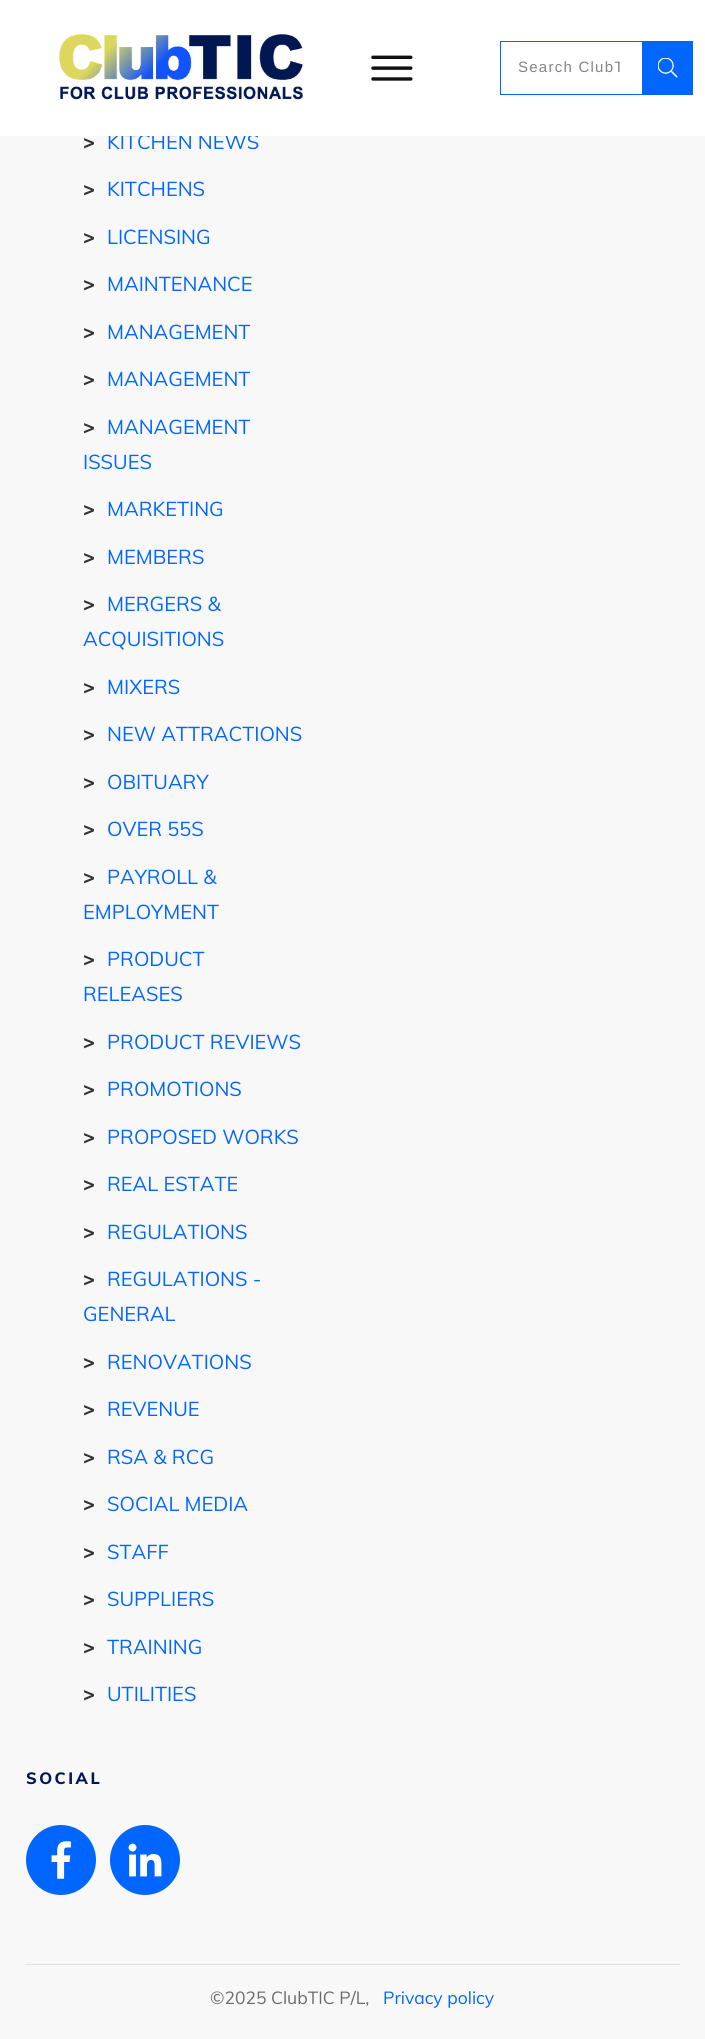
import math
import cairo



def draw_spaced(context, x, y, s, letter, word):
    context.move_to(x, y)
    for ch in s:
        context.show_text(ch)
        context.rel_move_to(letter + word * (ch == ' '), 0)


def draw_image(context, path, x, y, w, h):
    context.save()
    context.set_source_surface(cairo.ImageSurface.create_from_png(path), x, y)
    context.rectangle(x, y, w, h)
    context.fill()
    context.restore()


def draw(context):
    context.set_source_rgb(248 / 255, 248 / 255, 248 / 255)
    context.paint()
    context.set_source_rgb(0, 102 / 255, 1)
    context.arc(61, 1860, 35, 0, 2 * math.pi)
    context.fill()
    draw_image(context, "images/4.png", 51, 1841, 20, 38)
    context.arc(145, 1860, 35, 0, 2 * math.pi)
    context.fill()
    draw_image(context, "images/5.png", 128, 1843, 34, 34)
    context.set_source_rgb(223 / 255, 223 / 255, 223 / 255)
    context.rectangle(25, 1964, 655, 1)
    context.fill()
    context.select_font_face("Muli ExtraBold")
    context.set_font_size(20)
    context.set_source_rgb(51 / 255, 51 / 255, 51 / 255)
    context.move_to(83, 149)
    context.show_text(">")
    context.select_font_face("Muli")
    context.set_source_rgb(1 / 255, 102 / 255, 254 / 255)
    context.move_to(107, 149)
    context.show_text("KITCHEN NEWS")
    context.set_source_rgb(1, 1, 1)
    context.rectangle(0, 0, 705, 136)
    context.fill()
    draw_image(context, "images/2.png", 371, 55, 42, 26)
    context.set_source_rgb(1 / 255, 102 / 255, 254 / 255)
    context.rectangle(643, 41, 50, 54)
    context.fill()
    draw_image(context, "images/3.png", 658, 58, 20, 20)
    context.rectangle(500.5, 41.5, 142, 53)
    context.set_line_width(1)
    context.stroke()
    context.save()
    context.rectangle(518, 59, 102, 17)
    context.clip()
    context.select_font_face("Liberation Sans")
    context.set_font_size(15)
    context.set_source_rgb(133 / 255, 133 / 255, 133 / 255)
    draw_spaced(context, 518, 72, "Search ClubT", 1.25, 0)
    context.restore()
    draw_image(context, "images/1.png", 59, 34, 245, 66)
    context.select_font_face("Muli ExtraBold")
    context.set_source_rgb(51 / 255, 51 / 255, 51 / 255)
    context.move_to(83, 196)
    context.show_text(">")
    context.select_font_face("Muli")
    context.set_source_rgb(1 / 255, 102 / 255, 254 / 255)
    context.move_to(107, 196)
    context.show_text("KITCHENS")
    context.select_font_face("Muli ExtraBold")
    context.set_source_rgb(51 / 255, 51 / 255, 51 / 255)
    context.move_to(83, 244)
    context.show_text(">")
    context.select_font_face("Muli")
    context.set_source_rgb(1 / 255, 102 / 255, 254 / 255)
    context.move_to(107, 244)
    context.show_text("LICENSING")
    context.select_font_face("Muli ExtraBold")
    context.set_source_rgb(51 / 255, 51 / 255, 51 / 255)
    context.move_to(83, 291)
    context.show_text(">")
    context.select_font_face("Muli")
    context.set_source_rgb(1 / 255, 102 / 255, 254 / 255)
    context.move_to(107, 291)
    context.show_text("MAINTENANCE")
    context.select_font_face("Muli ExtraBold")
    context.set_source_rgb(51 / 255, 51 / 255, 51 / 255)
    context.move_to(83, 339)
    context.show_text(">")
    context.select_font_face("Muli")
    context.set_source_rgb(1 / 255, 102 / 255, 254 / 255)
    context.move_to(107, 339)
    context.show_text("MANAGEMENT")
    context.select_font_face("Muli ExtraBold")
    context.set_source_rgb(51 / 255, 51 / 255, 51 / 255)
    context.move_to(83, 386)
    context.show_text(">")
    context.select_font_face("Muli")
    context.set_source_rgb(1 / 255, 102 / 255, 254 / 255)
    context.move_to(107, 386)
    context.show_text("MANAGEMENT")
    context.select_font_face("Muli ExtraBold")
    context.set_source_rgb(51 / 255, 51 / 255, 51 / 255)
    context.move_to(83, 434)
    context.show_text(">")
    context.select_font_face("Muli")
    context.set_source_rgb(1 / 255, 102 / 255, 254 / 255)
    context.move_to(107, 434)
    context.show_text("MANAGEMENT")
    context.move_to(83, 469)
    context.show_text("ISSUES")
    context.select_font_face("Muli ExtraBold")
    context.set_source_rgb(51 / 255, 51 / 255, 51 / 255)
    context.move_to(83, 516)
    context.show_text(">")
    context.select_font_face("Muli")
    context.set_source_rgb(1 / 255, 102 / 255, 254 / 255)
    context.move_to(107, 516)
    context.show_text("MARKETING")
    context.select_font_face("Muli ExtraBold")
    context.set_source_rgb(51 / 255, 51 / 255, 51 / 255)
    context.move_to(83, 564)
    context.show_text(">")
    context.select_font_face("Muli")
    context.set_source_rgb(1 / 255, 102 / 255, 254 / 255)
    context.move_to(107, 564)
    context.show_text("MEMBERS")
    context.select_font_face("Muli ExtraBold")
    context.set_source_rgb(51 / 255, 51 / 255, 51 / 255)
    context.move_to(83, 611)
    context.show_text(">")
    context.select_font_face("Muli")
    context.set_source_rgb(1 / 255, 102 / 255, 254 / 255)
    context.move_to(107, 611)
    context.show_text("MERGERS &")
    context.move_to(83, 646)
    context.show_text("ACQUISITIONS")
    context.select_font_face("Muli ExtraBold")
    context.set_source_rgb(51 / 255, 51 / 255, 51 / 255)
    context.move_to(83, 694)
    context.show_text(">")
    context.select_font_face("Muli")
    context.set_source_rgb(1 / 255, 102 / 255, 254 / 255)
    context.move_to(107, 694)
    context.show_text("MIXERS")
    context.select_font_face("Muli ExtraBold")
    context.set_source_rgb(51 / 255, 51 / 255, 51 / 255)
    context.move_to(83, 741)
    context.show_text(">")
    context.select_font_face("Muli")
    context.set_source_rgb(1 / 255, 102 / 255, 254 / 255)
    context.move_to(107, 741)
    context.show_text("NEW ATTRACTIONS")
    context.select_font_face("Muli ExtraBold")
    context.set_source_rgb(51 / 255, 51 / 255, 51 / 255)
    context.move_to(83, 789)
    context.show_text(">")
    context.select_font_face("Muli")
    context.set_source_rgb(1 / 255, 102 / 255, 254 / 255)
    context.move_to(107, 789)
    context.show_text("OBITUARY")
    context.select_font_face("Muli ExtraBold")
    context.set_source_rgb(51 / 255, 51 / 255, 51 / 255)
    context.move_to(83, 836)
    context.show_text(">")
    context.select_font_face("Muli")
    context.set_source_rgb(1 / 255, 102 / 255, 254 / 255)
    context.move_to(107, 836)
    context.show_text("OVER 55S")
    context.select_font_face("Muli ExtraBold")
    context.set_source_rgb(51 / 255, 51 / 255, 51 / 255)
    context.move_to(83, 884)
    context.show_text(">")
    context.select_font_face("Muli")
    context.set_source_rgb(1 / 255, 102 / 255, 254 / 255)
    context.move_to(107, 884)
    context.show_text("PAYROLL &")
    context.move_to(83, 919)
    context.show_text("EMPLOYMENT")
    context.select_font_face("Muli ExtraBold")
    context.set_source_rgb(51 / 255, 51 / 255, 51 / 255)
    context.move_to(83, 966)
    context.show_text(">")
    context.select_font_face("Muli")
    context.set_source_rgb(1 / 255, 102 / 255, 254 / 255)
    context.move_to(107, 966)
    context.show_text("PRODUCT")
    context.move_to(83, 1001)
    context.show_text("RELEASES")
    context.select_font_face("Muli ExtraBold")
    context.set_source_rgb(51 / 255, 51 / 255, 51 / 255)
    context.move_to(83, 1049)
    context.show_text(">")
    context.select_font_face("Muli")
    context.set_source_rgb(1 / 255, 102 / 255, 254 / 255)
    context.move_to(107, 1049)
    context.show_text("PRODUCT REVIEWS")
    context.select_font_face("Muli ExtraBold")
    context.set_source_rgb(51 / 255, 51 / 255, 51 / 255)
    context.move_to(83, 1096)
    context.show_text(">")
    context.select_font_face("Muli")
    context.set_source_rgb(1 / 255, 102 / 255, 254 / 255)
    context.move_to(107, 1096)
    context.show_text("PROMOTIONS")
    context.select_font_face("Muli ExtraBold")
    context.set_source_rgb(51 / 255, 51 / 255, 51 / 255)
    context.move_to(83, 1144)
    context.show_text(">")
    context.select_font_face("Muli")
    context.set_source_rgb(1 / 255, 102 / 255, 254 / 255)
    context.move_to(107, 1144)
    context.show_text("PROPOSED WORKS")
    context.select_font_face("Muli ExtraBold")
    context.set_source_rgb(51 / 255, 51 / 255, 51 / 255)
    context.move_to(83, 1191)
    context.show_text(">")
    context.select_font_face("Muli")
    context.set_source_rgb(1 / 255, 102 / 255, 254 / 255)
    context.move_to(107, 1191)
    context.show_text("REAL ESTATE")
    context.select_font_face("Muli ExtraBold")
    context.set_source_rgb(51 / 255, 51 / 255, 51 / 255)
    context.move_to(83, 1239)
    context.show_text(">")
    context.select_font_face("Muli")
    context.set_source_rgb(1 / 255, 102 / 255, 254 / 255)
    context.move_to(107, 1239)
    context.show_text("REGULATIONS")
    context.select_font_face("Muli ExtraBold")
    context.set_source_rgb(51 / 255, 51 / 255, 51 / 255)
    context.move_to(83, 1286)
    context.show_text(">")
    context.select_font_face("Muli")
    context.set_source_rgb(1 / 255, 102 / 255, 254 / 255)
    context.move_to(107, 1286)
    context.show_text("REGULATIONS -")
    context.move_to(83, 1321)
    context.show_text("GENERAL")
    context.select_font_face("Muli ExtraBold")
    context.set_source_rgb(51 / 255, 51 / 255, 51 / 255)
    context.move_to(83, 1369)
    context.show_text(">")
    context.select_font_face("Muli")
    context.set_source_rgb(1 / 255, 102 / 255, 254 / 255)
    context.move_to(107, 1369)
    context.show_text("RENOVATIONS")
    context.select_font_face("Muli ExtraBold")
    context.set_source_rgb(51 / 255, 51 / 255, 51 / 255)
    context.move_to(83, 1416)
    context.show_text(">")
    context.select_font_face("Muli")
    context.set_source_rgb(1 / 255, 102 / 255, 254 / 255)
    context.move_to(107, 1416)
    context.show_text("REVENUE")
    context.select_font_face("Muli ExtraBold")
    context.set_source_rgb(51 / 255, 51 / 255, 51 / 255)
    context.move_to(83, 1464)
    context.show_text(">")
    context.select_font_face("Muli")
    context.set_source_rgb(1 / 255, 102 / 255, 254 / 255)
    context.move_to(107, 1464)
    context.show_text("RSA & RCG")
    context.select_font_face("Muli ExtraBold")
    context.set_source_rgb(51 / 255, 51 / 255, 51 / 255)
    context.move_to(83, 1511)
    context.show_text(">")
    context.select_font_face("Muli")
    context.set_source_rgb(1 / 255, 102 / 255, 254 / 255)
    context.move_to(107, 1511)
    context.show_text("SOCIAL MEDIA")
    context.select_font_face("Muli ExtraBold")
    context.set_source_rgb(51 / 255, 51 / 255, 51 / 255)
    context.move_to(83, 1559)
    context.show_text(">")
    context.select_font_face("Muli")
    context.set_source_rgb(1 / 255, 102 / 255, 254 / 255)
    context.move_to(107, 1559)
    context.show_text("STAFF")
    context.select_font_face("Muli ExtraBold")
    context.set_source_rgb(51 / 255, 51 / 255, 51 / 255)
    context.move_to(83, 1606)
    context.show_text(">")
    context.select_font_face("Muli")
    context.set_source_rgb(1 / 255, 102 / 255, 254 / 255)
    context.move_to(107, 1606)
    context.show_text("SUPPLIERS")
    context.select_font_face("Muli ExtraBold")
    context.set_source_rgb(51 / 255, 51 / 255, 51 / 255)
    context.move_to(83, 1654)
    context.show_text(">")
    context.select_font_face("Muli")
    context.set_source_rgb(1 / 255, 102 / 255, 254 / 255)
    context.move_to(107, 1654)
    context.show_text("TRAINING")
    context.select_font_face("Muli ExtraBold")
    context.set_source_rgb(51 / 255, 51 / 255, 51 / 255)
    context.move_to(83, 1701)
    context.show_text(">")
    context.select_font_face("Muli")
    context.set_source_rgb(1 / 255, 102 / 255, 254 / 255)
    context.move_to(107, 1701)
    context.show_text("UTILITIES")
    context.select_font_face("Muli ExtraBold")
    context.set_font_size(16.25)
    context.set_source_rgb(1 / 255, 23 / 255, 81 / 255)
    draw_spaced(context, 26, 1784, "SOCIAL", 2.5, 0)
    context.select_font_face("Muli")
    context.set_font_size(17.5)
    context.set_source_rgb(106 / 255, 107 / 255, 108 / 255)
    context.move_to(210, 2004)
    context.show_text("©2025 ClubTIC P/L,")
    context.set_source_rgb(1 / 255, 102 / 255, 254 / 255)
    context.move_to(383, 2004)
    context.show_text("Privacy policy")


surface = cairo.ImageSurface(cairo.Format.RGB24, 705, 2039)
context = cairo.Context(surface)
options = cairo.FontOptions()
options.set_hint_metrics(cairo.HintMetrics.OFF)
options.set_hint_style(cairo.HintStyle.NONE)
context.set_font_options(options)
context.set_miter_limit(4)
draw(context)
surface.write_to_png("out.png")
